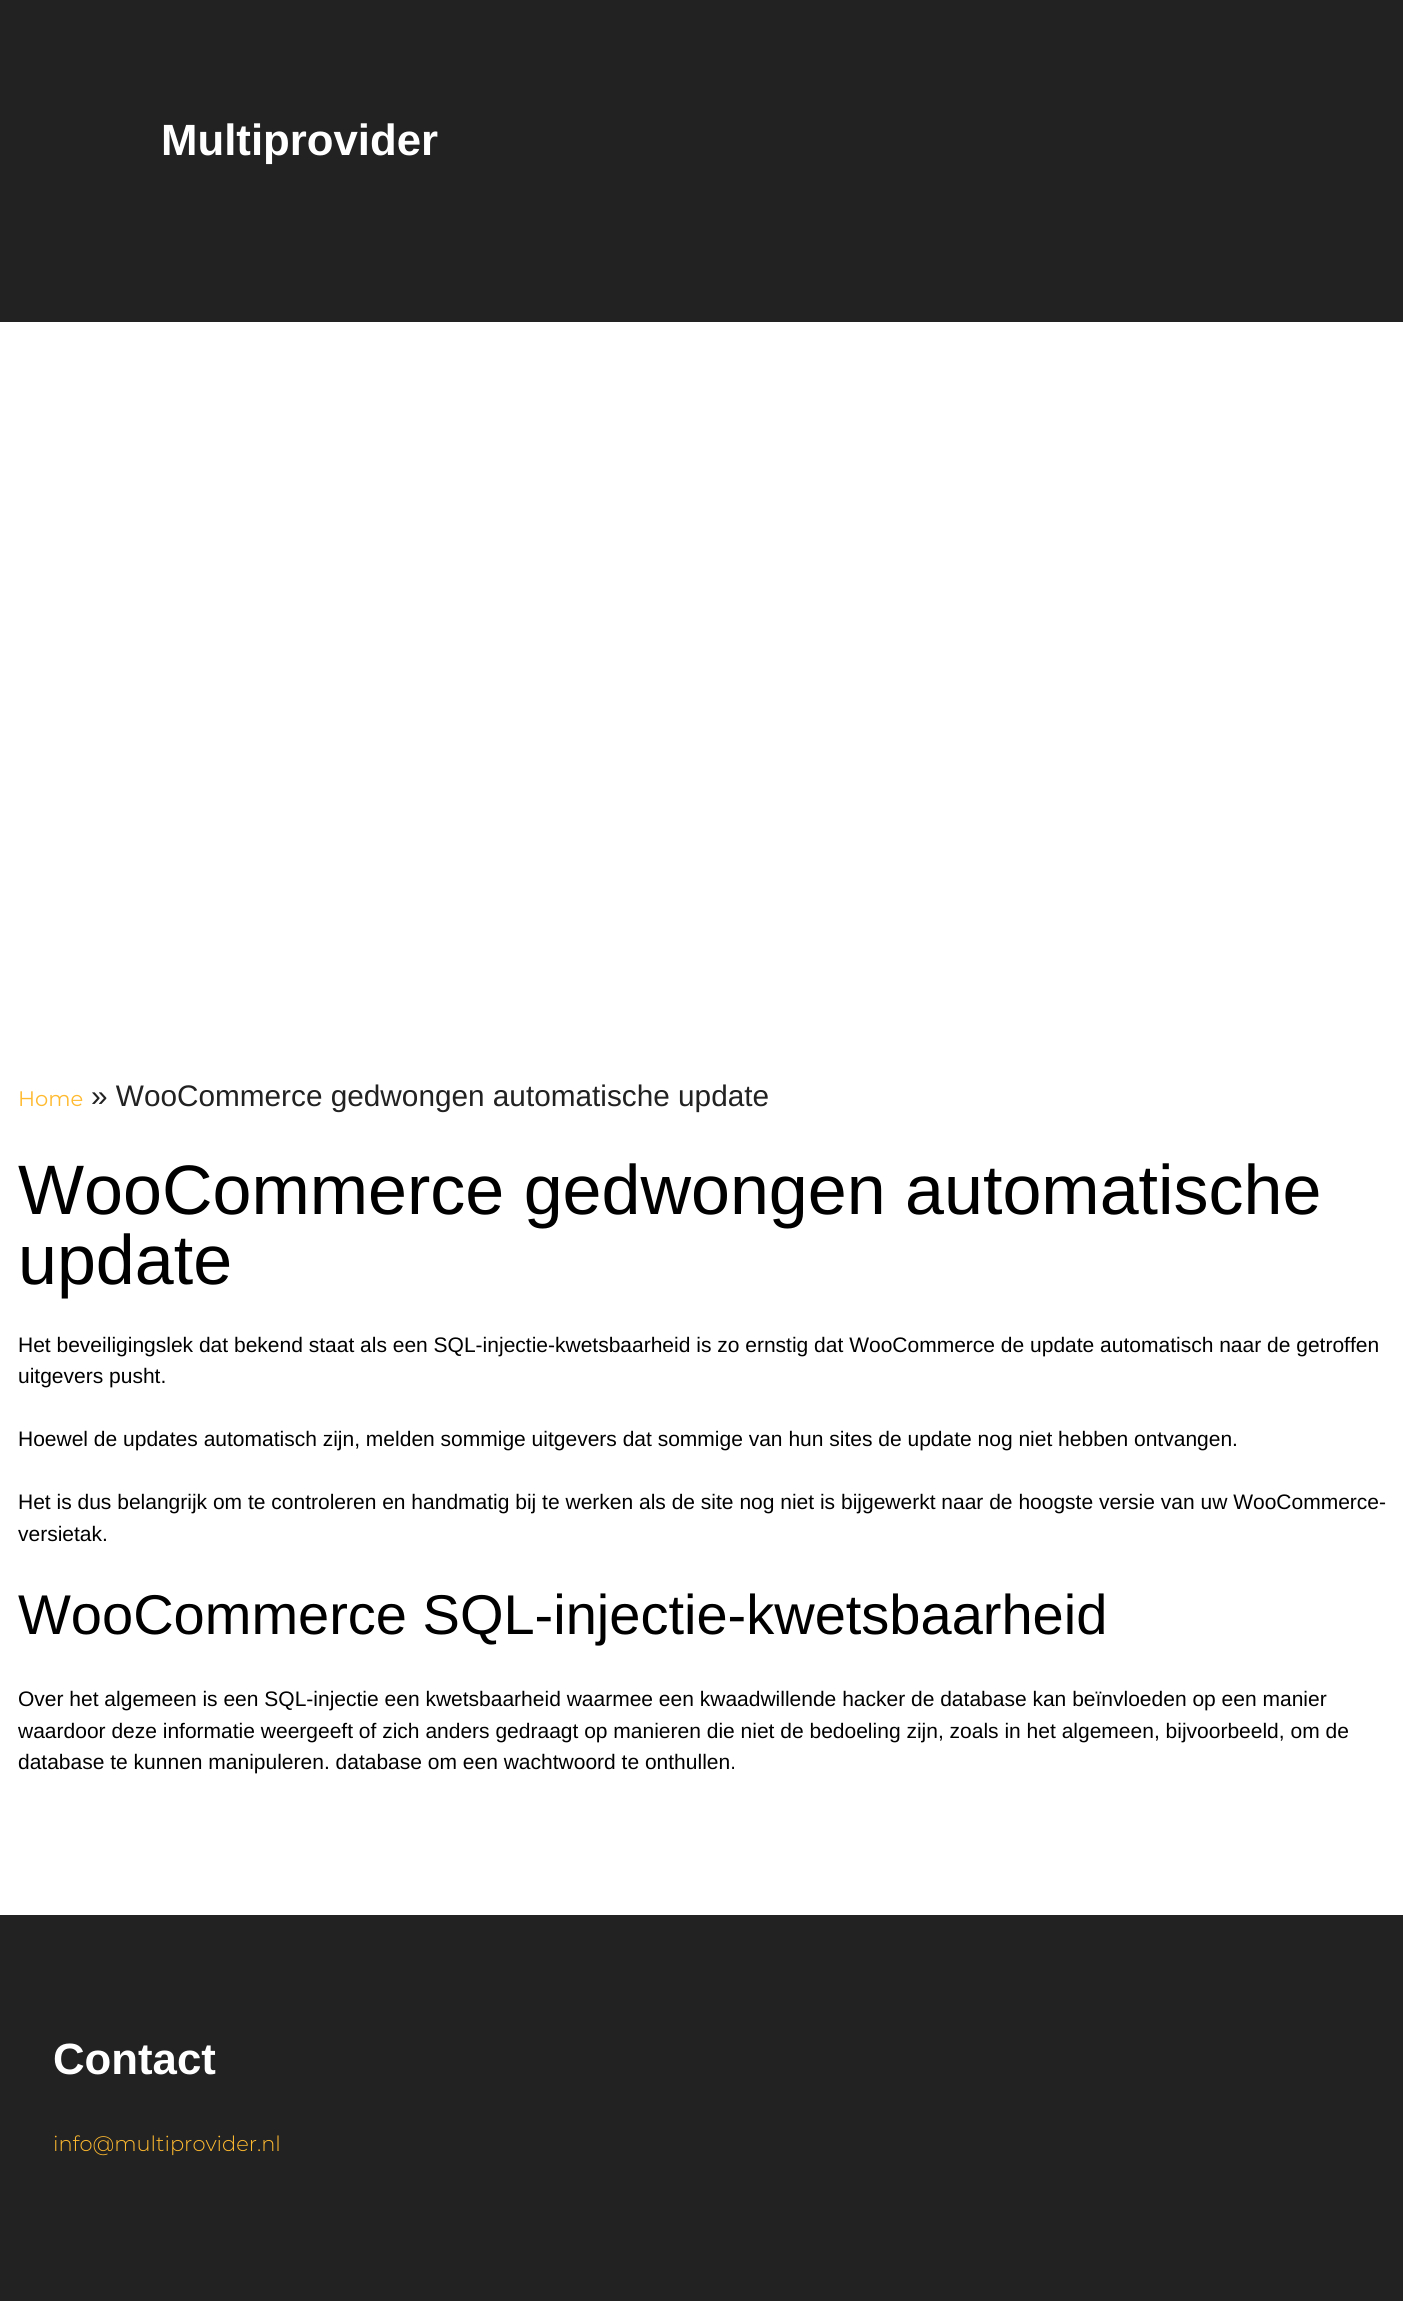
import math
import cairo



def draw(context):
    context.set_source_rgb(1, 1, 1)
    context.paint()
    context.set_source_rgb(34 / 255, 34 / 255, 34 / 255)
    context.rectangle(0, 0, 1403, 322)
    context.fill()
    context.rectangle(0, 1915, 1403, 386)
    context.fill()
    context.select_font_face("Liberation Sans", cairo.FontSlant.NORMAL, cairo.FontWeight.BOLD)
    context.set_font_size(43.75)
    context.set_source_rgb(1, 1, 1)
    context.move_to(161, 155)
    context.show_text("Multiprovider")
    context.select_font_face("Montserrat")
    context.set_font_size(21)
    context.set_source_rgb(1, 186 / 255, 47 / 255)
    context.move_to(18, 1106)
    context.show_text("Home")
    context.select_font_face("Liberation Sans")
    context.set_font_size(29.75)
    context.set_source_rgb(34 / 255, 34 / 255, 34 / 255)
    context.move_to(91, 1106)
    context.show_text("» WooCommerce gedwongen automatische update")
    context.set_font_size(70)
    context.set_source_rgb(0, 0, 0)
    context.move_to(18, 1214)
    context.show_text("WooCommerce gedwongen automatische")
    context.move_to(18, 1284)
    context.show_text("update")
    context.set_font_size(21)
    context.move_to(18, 1352)
    context.show_text("Het beveiligingslek dat bekend staat als een SQL-injectie-kwetsbaarheid is zo ernstig dat WooCommerce de update automatisch naar de getroffen")
    context.move_to(18, 1383)
    context.show_text("uitgevers pusht.")
    context.move_to(18, 1446)
    context.show_text("Hoewel de updates automatisch zijn, melden sommige uitgevers dat sommige van hun sites de update nog niet hebben ontvangen.")
    context.move_to(18, 1509)
    context.show_text("Het is dus belangrijk om te controleren en handmatig bij te werken als de site nog niet is bijgewerkt naar de hoogste versie van uw WooCommerce-")
    context.move_to(18, 1541)
    context.show_text("versietak.")
    context.set_font_size(56)
    context.move_to(18, 1634)
    context.show_text("WooCommerce SQL-injectie-kwetsbaarheid")
    context.set_font_size(21)
    context.move_to(18, 1706)
    context.show_text("Over het algemeen is een SQL-injectie een kwetsbaarheid waarmee een kwaadwillende hacker de database kan beïnvloeden op een manier")
    context.move_to(18, 1738)
    context.show_text("waardoor deze informatie weergeeft of zich anders gedraagt op manieren die niet de bedoeling zijn, zoals in het algemeen, bijvoorbeeld, om de")
    context.move_to(18, 1769)
    context.show_text("database te kunnen manipuleren. database om een wachtwoord te onthullen.")
    context.select_font_face("Liberation Sans", cairo.FontSlant.NORMAL, cairo.FontWeight.BOLD)
    context.set_font_size(43.75)
    context.set_source_rgb(1, 1, 1)
    context.move_to(53, 2074)
    context.show_text("Contact")
    context.select_font_face("Montserrat Light")
    context.set_font_size(21)
    context.set_source_rgb(1, 186 / 255, 47 / 255)
    context.move_to(53, 2151)
    context.show_text("info@multiprovider.nl")


surface = cairo.ImageSurface(cairo.Format.RGB24, 1403, 2301)
context = cairo.Context(surface)
options = cairo.FontOptions()
options.set_hint_metrics(cairo.HintMetrics.OFF)
options.set_hint_style(cairo.HintStyle.NONE)
context.set_font_options(options)
context.set_miter_limit(4)
draw(context)
surface.write_to_png("out.png")
